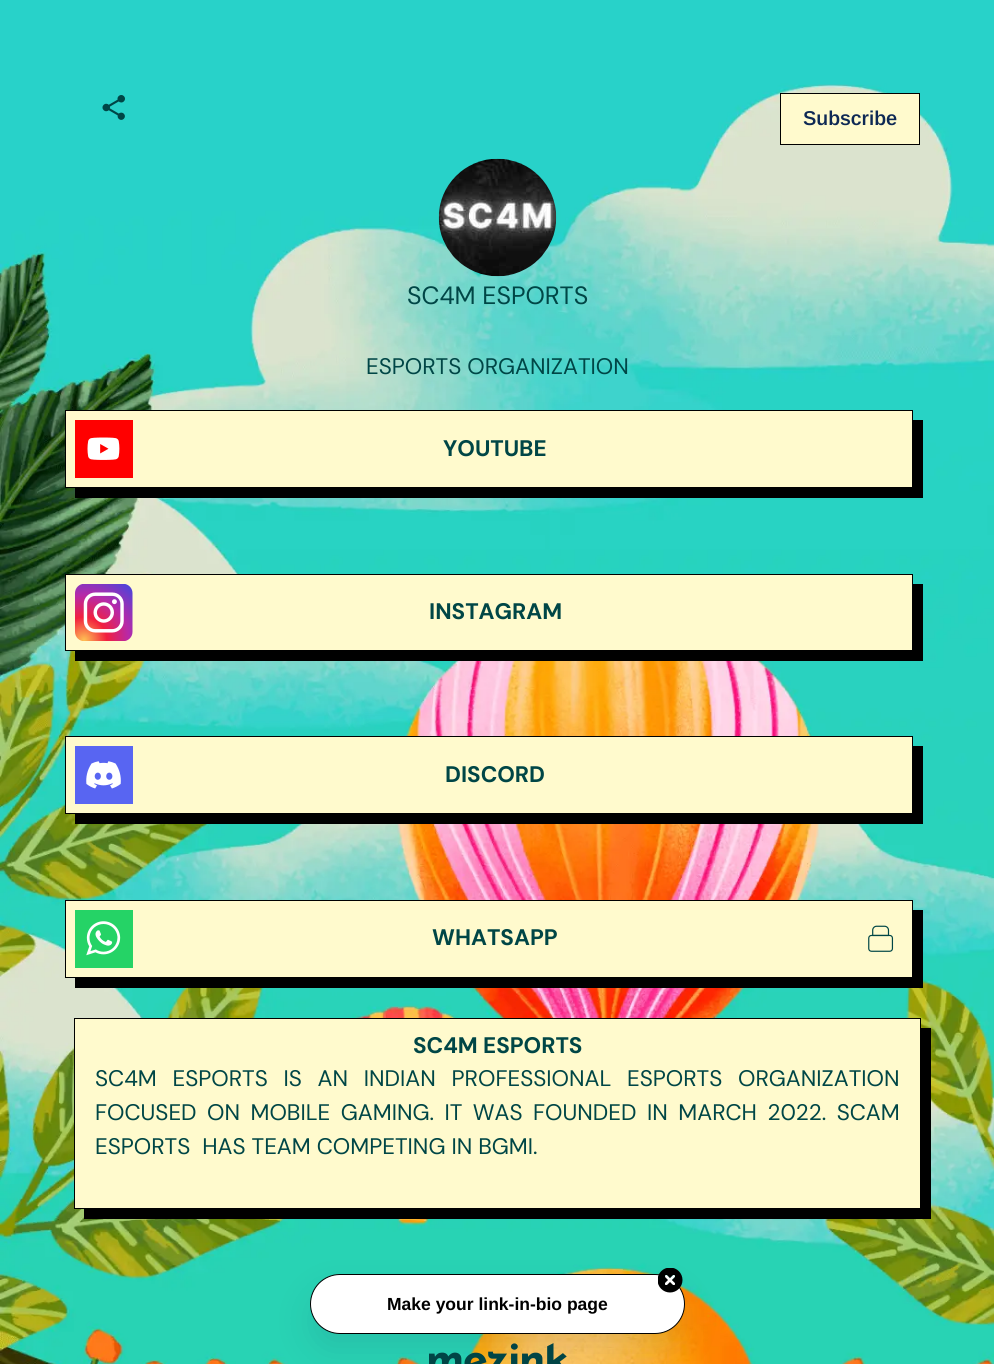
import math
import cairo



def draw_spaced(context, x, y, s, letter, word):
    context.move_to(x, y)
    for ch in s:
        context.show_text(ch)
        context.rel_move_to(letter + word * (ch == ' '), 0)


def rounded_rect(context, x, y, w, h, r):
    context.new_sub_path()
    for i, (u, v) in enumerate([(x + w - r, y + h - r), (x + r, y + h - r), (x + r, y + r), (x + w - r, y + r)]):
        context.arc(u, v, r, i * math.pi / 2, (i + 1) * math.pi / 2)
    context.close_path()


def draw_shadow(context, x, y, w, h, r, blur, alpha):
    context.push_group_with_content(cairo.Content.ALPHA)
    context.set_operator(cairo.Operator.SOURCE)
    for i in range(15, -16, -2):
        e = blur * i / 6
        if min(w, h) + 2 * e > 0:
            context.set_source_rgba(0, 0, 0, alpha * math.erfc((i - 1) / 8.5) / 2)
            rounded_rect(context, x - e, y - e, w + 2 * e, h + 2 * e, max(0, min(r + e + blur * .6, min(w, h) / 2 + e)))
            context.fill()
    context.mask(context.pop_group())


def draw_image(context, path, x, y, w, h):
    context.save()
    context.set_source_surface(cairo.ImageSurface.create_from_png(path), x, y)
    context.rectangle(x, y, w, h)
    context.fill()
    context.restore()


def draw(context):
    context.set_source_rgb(1, 1, 1)
    context.paint()
    draw_image(context, "images/1.png", 0, 0, 994, 1364)
    draw_image(context, "images/2.png", 102, 95, 23, 25)
    context.set_source_rgb(1, 250 / 255, 205 / 255)
    context.rectangle(780.5, 93.5, 139, 51)
    context.fill_preserve()
    context.set_source_rgb(0, 0, 0)
    context.set_line_width(1)
    context.stroke()
    draw_image(context, "images/3.png", 438, 158, 119, 119)
    context.new_path()
    context.move_to(75, 488)
    context.line_to(75, 498)
    context.line_to(923, 498)
    context.line_to(923, 420)
    context.line_to(912, 420)
    context.line_to(912, 488)
    context.close_path()
    context.fill()
    context.set_source_rgb(1, 250 / 255, 205 / 255)
    context.rectangle(65.5, 410.5, 847, 77)
    context.fill_preserve()
    context.set_source_rgb(0, 0, 0)
    context.stroke()
    draw_image(context, "images/4.png", 75, 420, 58, 58)
    context.new_path()
    context.move_to(75, 651)
    context.line_to(75, 661)
    context.line_to(923, 661)
    context.line_to(923, 584)
    context.line_to(912, 584)
    context.line_to(912, 651)
    context.close_path()
    context.fill()
    context.set_source_rgb(1, 250 / 255, 205 / 255)
    context.rectangle(65.5, 574.5, 847, 76)
    context.fill_preserve()
    context.set_source_rgb(0, 0, 0)
    context.stroke()
    draw_image(context, "images/5.png", 75, 584, 58, 57)
    context.new_path()
    context.move_to(75, 814)
    context.line_to(75, 824)
    context.line_to(923, 824)
    context.line_to(923, 746)
    context.line_to(912, 746)
    context.line_to(912, 814)
    context.close_path()
    context.fill()
    context.set_source_rgb(1, 250 / 255, 205 / 255)
    context.rectangle(65.5, 736.5, 847, 77)
    context.fill_preserve()
    context.set_source_rgb(0, 0, 0)
    context.stroke()
    draw_image(context, "images/6.png", 75, 746, 58, 58)
    context.new_path()
    context.move_to(75, 978)
    context.line_to(75, 988)
    context.line_to(923, 988)
    context.line_to(923, 910)
    context.line_to(912, 910)
    context.line_to(912, 978)
    context.close_path()
    context.fill()
    context.set_source_rgb(1, 250 / 255, 205 / 255)
    context.rectangle(65.5, 900.5, 847, 77)
    context.fill_preserve()
    context.set_source_rgb(0, 0, 0)
    context.stroke()
    draw_image(context, "images/7.png", 75, 910, 58, 58)
    draw_image(context, "images/8.png", 868, 925, 26, 27)
    context.new_path()
    context.move_to(84, 1209)
    context.line_to(84, 1219)
    context.line_to(931, 1219)
    context.line_to(931, 1028)
    context.line_to(921, 1028)
    context.line_to(921, 1209)
    context.close_path()
    context.fill()
    context.set_source_rgb(1, 250 / 255, 205 / 255)
    context.rectangle(74.5, 1018.5, 846, 190)
    context.fill_preserve()
    context.set_source_rgb(0, 0, 0)
    context.stroke()
    draw_image(context, "images/10.png", 429, 1343, 138, 21)
    context.set_source_rgb(25 / 255, 31 / 255, 61 / 255)
    draw_shadow(context, 310, 1291, 375, 60, 30, 17, 0.1)
    context.set_source_rgb(1, 1, 1)
    rounded_rect(context, 310.5, 1274.5, 374, 59, 29.5)
    context.fill_preserve()
    context.set_source_rgb(0, 0, 0)
    context.stroke()
    draw_image(context, "images/9.png", 658, 1268, 25, 25)
    context.select_font_face("Arimo SemiBold")
    context.set_font_size(20)
    context.set_source_rgb(13 / 255, 40 / 255, 84 / 255)
    context.move_to(803, 125)
    context.show_text("Subscribe")
    context.select_font_face("DM Sans")
    context.set_font_size(25)
    context.set_source_rgb(0, 70 / 255, 70 / 255)
    context.move_to(407, 304)
    context.show_text("SC4M ESPORTS")
    context.set_font_size(22.5)
    context.move_to(366, 374)
    context.show_text("ESPORTS ORGANIZATION")
    context.select_font_face("DM Sans", cairo.FontSlant.NORMAL, cairo.FontWeight.BOLD)
    context.move_to(443, 456)
    context.show_text("YOUTUBE")
    context.move_to(429, 619)
    context.show_text("INSTAGRAM")
    context.move_to(445, 782)
    context.show_text("DISCORD")
    context.move_to(432, 945)
    context.show_text("WHATSAPP")
    context.move_to(413, 1053)
    context.show_text("SC4M ESPORTS")
    context.select_font_face("DM Sans")
    draw_spaced(context, 95, 1086, "SC4M ESPORTS IS AN INDIAN PROFESSIONAL ESPORTS ORGANIZATION", 0, 9.75)
    draw_spaced(context, 95, 1120, "FOCUSED ON MOBILE GAMING. IT WAS FOUNDED IN MARCH 2022. SCAM", 0, 4.5)
    context.move_to(95, 1154)
    context.show_text("ESPORTS  HAS TEAM COMPETING IN BGMI.")
    context.select_font_face("Arimo", cairo.FontSlant.NORMAL, cairo.FontWeight.BOLD)
    context.set_font_size(17.5)
    context.set_source_rgb(0, 0, 0)
    context.move_to(387, 1310)
    context.show_text("Make your link-in-bio page")


surface = cairo.ImageSurface(cairo.Format.RGB24, 994, 1364)
context = cairo.Context(surface)
options = cairo.FontOptions()
options.set_hint_metrics(cairo.HintMetrics.OFF)
options.set_hint_style(cairo.HintStyle.NONE)
context.set_font_options(options)
context.set_miter_limit(4)
draw(context)
surface.write_to_png("out.png")
